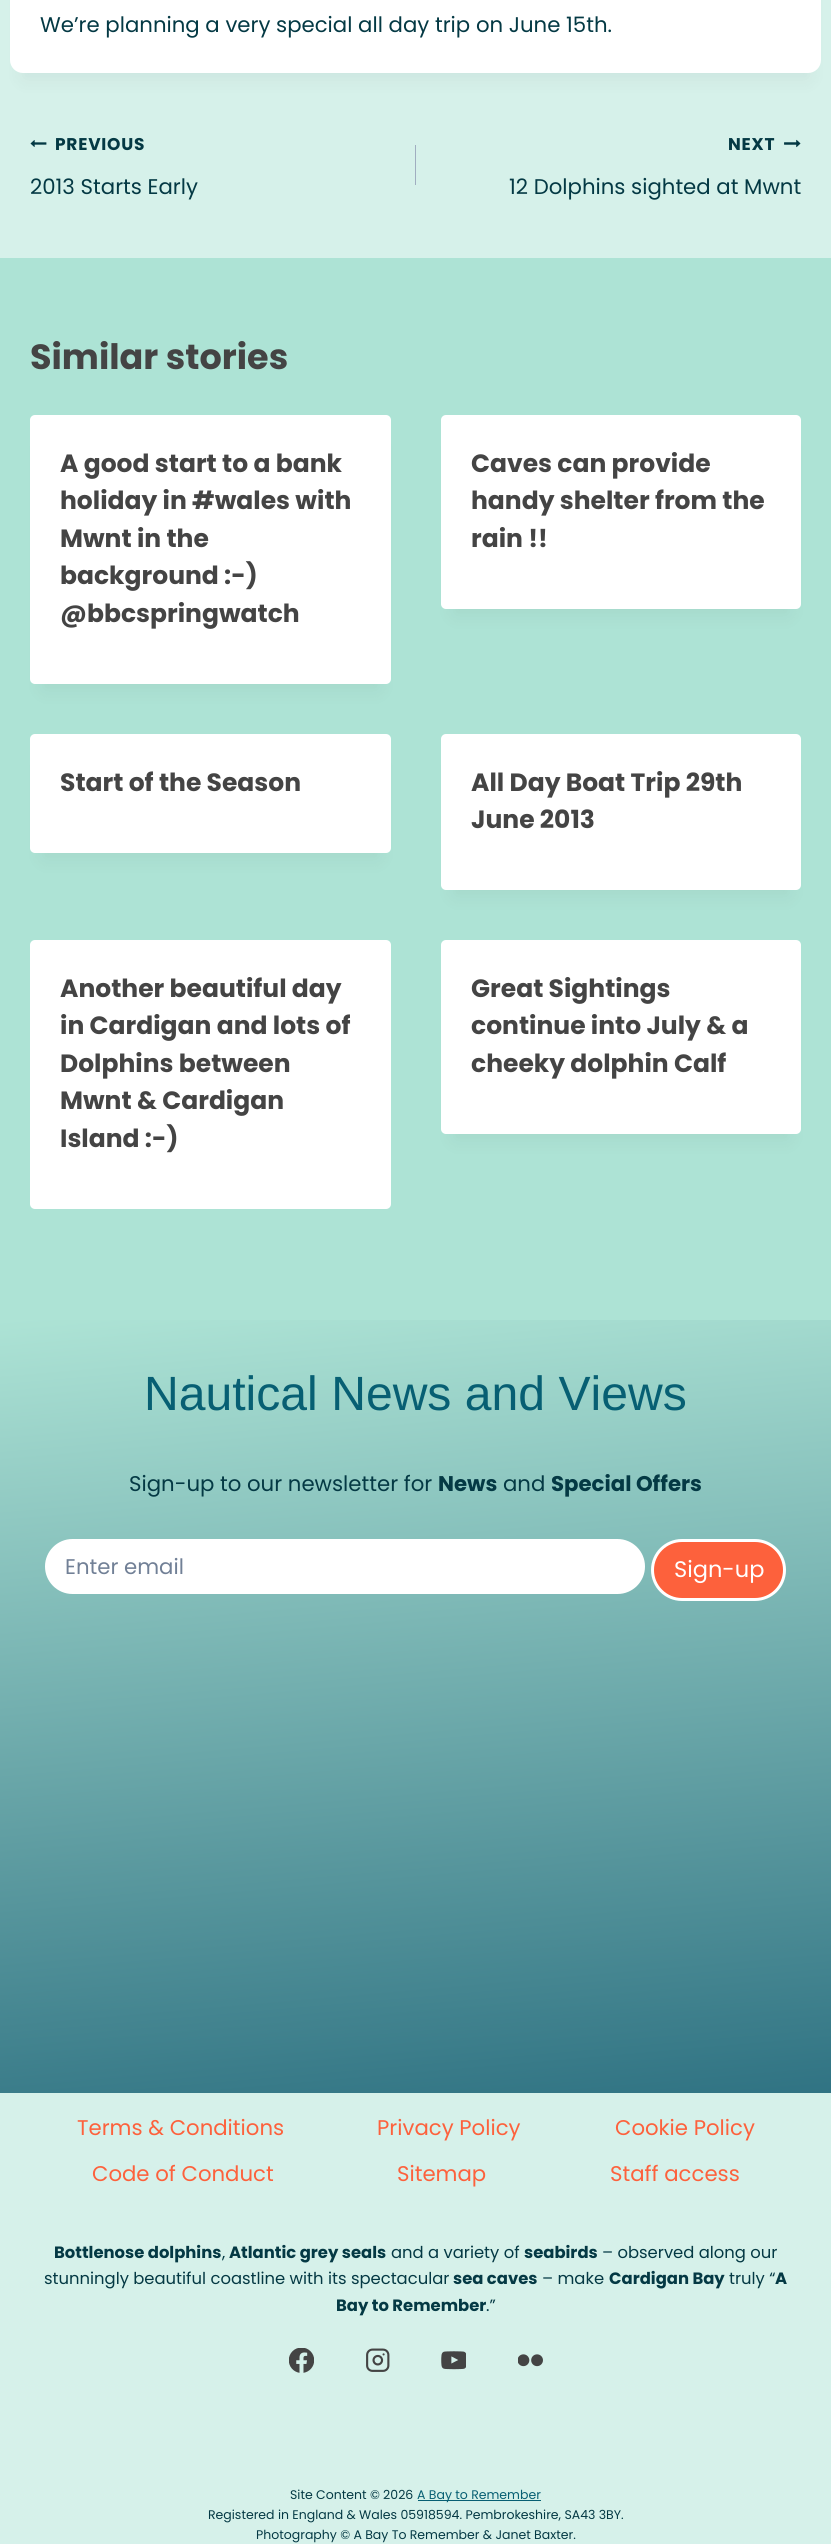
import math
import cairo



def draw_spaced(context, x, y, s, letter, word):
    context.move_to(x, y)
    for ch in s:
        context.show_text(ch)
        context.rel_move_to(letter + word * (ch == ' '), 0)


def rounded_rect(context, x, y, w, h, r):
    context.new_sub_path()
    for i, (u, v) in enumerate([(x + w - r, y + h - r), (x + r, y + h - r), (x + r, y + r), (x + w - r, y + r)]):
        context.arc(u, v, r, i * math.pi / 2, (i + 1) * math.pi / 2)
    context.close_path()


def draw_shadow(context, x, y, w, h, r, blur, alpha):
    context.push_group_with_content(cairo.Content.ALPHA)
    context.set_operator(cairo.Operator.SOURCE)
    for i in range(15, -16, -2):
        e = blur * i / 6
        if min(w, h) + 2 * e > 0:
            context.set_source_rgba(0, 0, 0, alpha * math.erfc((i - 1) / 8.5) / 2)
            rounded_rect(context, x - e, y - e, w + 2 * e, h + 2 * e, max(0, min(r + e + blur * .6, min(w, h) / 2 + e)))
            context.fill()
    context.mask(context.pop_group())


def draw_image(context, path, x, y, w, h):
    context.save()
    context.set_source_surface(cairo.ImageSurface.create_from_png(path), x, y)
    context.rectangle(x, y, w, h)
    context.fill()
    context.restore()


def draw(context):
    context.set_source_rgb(214 / 255, 241 / 255, 234 / 255)
    context.paint()
    context.set_source_rgb(0, 0, 0)
    draw_shadow(context, 23, -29, 786, 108, 0, 9.5, 0.05)
    context.set_source_rgb(1, 1, 1)
    rounded_rect(context, 10, -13, 811, 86, 13)
    context.fill()
    draw_image(context, "images/1.png", 30, 140, 17, 7)
    context.set_source_rgb(160 / 255, 174 / 255, 192 / 255)
    context.rectangle(415, 145, 1, 40)
    context.fill()
    draw_image(context, "images/2.png", 784, 139, 17, 9)
    context.set_source_rgb(173 / 255, 227 / 255, 213 / 255)
    context.rectangle(0, 258, 831, 1062)
    context.fill()
    context.set_source_rgb(0, 0, 0)
    draw_shadow(context, 43, 446, 336, 244, 0, 9.5, 0.05)
    context.set_source_rgb(1, 1, 1)
    rounded_rect(context, 30, 415, 361, 269, 5)
    context.fill()
    context.set_source_rgb(0, 0, 0)
    draw_shadow(context, 454, 446, 335, 169, 0, 9.5, 0.05)
    context.set_source_rgb(1, 1, 1)
    rounded_rect(context, 441, 415, 360, 194, 5)
    context.fill()
    context.set_source_rgb(0, 0, 0)
    draw_shadow(context, 43, 765, 336, 94, 0, 9.5, 0.05)
    context.set_source_rgb(1, 1, 1)
    rounded_rect(context, 30, 734, 361, 119, 5)
    context.fill()
    context.set_source_rgb(0, 0, 0)
    draw_shadow(context, 454, 765, 335, 131, 0, 9.5, 0.05)
    context.set_source_rgb(1, 1, 1)
    rounded_rect(context, 441, 734, 360, 156, 5)
    context.fill()
    rounded_rect(context, 30, 940, 361, 269, 5)
    context.fill()
    context.set_source_rgb(0, 0, 0)
    draw_shadow(context, 454, 971, 335, 169, 0, 9.5, 0.05)
    context.set_source_rgb(1, 1, 1)
    rounded_rect(context, 441, 940, 360, 194, 5)
    context.fill()
    gradient = cairo.LinearGradient(379, 1287, 452, 2126)
    gradient.add_color_stop_rgba(0, 173 / 255, 227 / 255, 213 / 255, 1)
    gradient.add_color_stop_rgba(1, 48 / 255, 115 / 255, 131 / 255, 1)
    context.set_source(gradient)
    context.rectangle(0, 1320, 831, 773)
    context.fill()
    context.set_source_rgb(1, 1, 1)
    rounded_rect(context, 45, 1539, 600, 55, 27.5)
    context.fill()
    context.set_source_rgb(253 / 255, 97 / 255, 60 / 255)
    rounded_rect(context, 652.5, 1540.5, 132, 59, 29.5)
    context.fill_preserve()
    context.set_source_rgb(1, 1, 1)
    context.set_line_width(3)
    context.stroke()
    draw_image(context, "images/3.png", 289, 2348, 25, 25)
    draw_image(context, "images/4.png", 366, 2348, 24, 24)
    draw_image(context, "images/5.png", 441, 2351, 25, 19)
    draw_image(context, "images/6.png", 518, 2354, 25, 13)
    context.set_source_rgb(7 / 255, 95 / 255, 115 / 255)
    context.rectangle(418, 2500, 123, 1)
    context.fill()
    context.select_font_face("Poppins")
    context.set_font_size(21.25)
    context.set_source_rgb(4 / 255, 57 / 255, 68 / 255)
    context.move_to(40, 32)
    context.show_text("We’re planning a very special all day trip on June 15th.")
    context.select_font_face("Poppins", cairo.FontSlant.NORMAL, cairo.FontWeight.BOLD)
    context.set_font_size(17)
    draw_spaced(context, 55, 150, "PREVIOUS", 0.75, 0)
    context.select_font_face("Poppins")
    context.set_font_size(21.25)
    context.move_to(30, 194)
    context.show_text("2013 Starts Early")
    context.select_font_face("Poppins", cairo.FontSlant.NORMAL, cairo.FontWeight.BOLD)
    context.set_font_size(17)
    draw_spaced(context, 728, 150, "NEXT", 0.75, 0)
    context.select_font_face("Poppins")
    context.set_font_size(21.25)
    context.move_to(509, 194)
    context.show_text("12 Dolphins sighted at Mwnt")
    context.select_font_face("Poppins", cairo.FontSlant.NORMAL, cairo.FontWeight.BOLD)
    context.set_font_size(35)
    context.set_source_rgb(68 / 255, 68 / 255, 68 / 255)
    context.move_to(30, 369)
    context.show_text("Similar stories")
    context.set_font_size(25)
    context.move_to(60, 472)
    context.show_text("A good start to a bank")
    context.move_to(60, 509)
    context.show_text("holiday in #wales with")
    context.move_to(60, 547)
    context.show_text("Mwnt in the")
    context.move_to(60, 584)
    context.show_text("background :-)")
    context.move_to(60, 622)
    context.show_text("@bbcspringwatch")
    context.move_to(471, 472)
    context.show_text("Caves can provide")
    context.move_to(471, 509)
    context.show_text("handy shelter from the")
    context.move_to(471, 547)
    context.show_text("rain !!")
    context.move_to(60, 791)
    context.show_text("Start of the Season")
    context.move_to(471, 791)
    context.show_text("All Day Boat Trip 29th")
    context.move_to(471, 828)
    context.show_text("June 2013")
    context.move_to(60, 997)
    context.show_text("Another beautiful day")
    context.move_to(60, 1034)
    context.show_text("in Cardigan and lots of")
    context.move_to(60, 1072)
    context.show_text("Dolphins between")
    context.move_to(60, 1109)
    context.show_text("Mwnt & Cardigan")
    context.move_to(60, 1147)
    context.show_text("Island :-)")
    context.move_to(471, 997)
    context.show_text("Great Sightings")
    context.move_to(471, 1034)
    context.show_text("continue into July & a")
    context.move_to(471, 1072)
    context.show_text("cheeky dolphin Calf")
    context.select_font_face("Liberation Sans")
    context.set_font_size(48.1)
    context.set_source_rgb(7 / 255, 95 / 255, 115 / 255)
    context.move_to(144, 1410)
    context.show_text("Nautical News and Views")
    context.select_font_face("Poppins")
    context.set_font_size(21.25)
    context.set_source_rgb(4 / 255, 57 / 255, 68 / 255)
    context.move_to(129, 1491)
    context.show_text("Sign-up to our newsletter for")
    context.select_font_face("Poppins", cairo.FontSlant.NORMAL, cairo.FontWeight.BOLD)
    context.move_to(438, 1491)
    context.show_text("News")
    context.select_font_face("Poppins")
    context.move_to(503, 1491)
    context.show_text("and")
    context.select_font_face("Poppins", cairo.FontSlant.NORMAL, cairo.FontWeight.BOLD)
    context.move_to(551, 1491)
    context.show_text("Special Offers")
    context.select_font_face("Poppins")
    context.set_source_rgb(113 / 255, 128 / 255, 150 / 255)
    context.move_to(65, 1574)
    context.show_text("Enter email")
    context.set_font_size(22.5)
    context.set_source_rgb(1, 1, 1)
    context.move_to(674, 1577)
    context.show_text("Sign-up")
    context.set_font_size(21.25)
    context.set_source_rgb(253 / 255, 97 / 255, 60 / 255)
    context.move_to(77, 2135)
    context.show_text("Terms & Conditions")
    context.move_to(377, 2135)
    context.show_text("Privacy Policy")
    context.move_to(615, 2135)
    context.show_text("Cookie Policy")
    context.move_to(92, 2181)
    context.show_text("Code of Conduct")
    context.move_to(397, 2181)
    context.show_text("Sitemap")
    context.move_to(610, 2181)
    context.show_text("Staff access")
    context.select_font_face("Poppins", cairo.FontSlant.NORMAL, cairo.FontWeight.BOLD)
    context.set_font_size(16.4)
    context.set_source_rgb(4 / 255, 57 / 255, 68 / 255)
    context.move_to(54, 2258)
    context.show_text("Bottlenose dolphins")
    context.select_font_face("Poppins")
    context.move_to(222, 2258)
    context.show_text(",")
    context.select_font_face("Poppins", cairo.FontSlant.NORMAL, cairo.FontWeight.BOLD)
    context.move_to(229, 2258)
    context.show_text("Atlantic grey seals")
    context.select_font_face("Poppins")
    context.move_to(391, 2258)
    context.show_text("and a variety of")
    context.select_font_face("Poppins", cairo.FontSlant.NORMAL, cairo.FontWeight.BOLD)
    context.move_to(524, 2258)
    context.show_text("seabirds")
    context.select_font_face("Poppins")
    context.move_to(602, 2258)
    context.show_text("– observed along our")
    context.move_to(44, 2284)
    context.show_text("stunningly beautiful coastline with its spectacular")
    context.select_font_face("Poppins", cairo.FontSlant.NORMAL, cairo.FontWeight.BOLD)
    context.move_to(453, 2284)
    context.show_text("sea caves")
    context.select_font_face("Poppins")
    context.move_to(542, 2284)
    context.show_text("– make")
    context.select_font_face("Poppins", cairo.FontSlant.NORMAL, cairo.FontWeight.BOLD)
    context.move_to(609, 2284)
    context.show_text("Cardigan Bay")
    context.select_font_face("Poppins")
    context.move_to(729, 2284)
    context.show_text("truly “")
    context.select_font_face("Poppins", cairo.FontSlant.NORMAL, cairo.FontWeight.BOLD)
    context.move_to(775, 2284)
    context.show_text("A")
    context.move_to(336, 2311)
    context.show_text("Bay to Remember")
    context.select_font_face("Poppins")
    context.move_to(486, 2311)
    context.show_text(".”")
    context.set_font_size(12.5)
    context.move_to(290, 2499)
    context.show_text("Site Content © 2026")
    context.set_source_rgb(7 / 255, 95 / 255, 115 / 255)
    context.move_to(417, 2499)
    context.show_text("A Bay to Remember")
    context.set_source_rgb(4 / 255, 57 / 255, 68 / 255)
    context.move_to(208, 2519)
    context.show_text("Registered in England & Wales 05918594. Pembrokeshire, SA43 3BY.")
    context.move_to(256, 2539)
    context.show_text("Photography © A Bay To Remember & Janet Baxter.")


surface = cairo.ImageSurface(cairo.Format.RGB24, 831, 2544)
context = cairo.Context(surface)
options = cairo.FontOptions()
options.set_hint_metrics(cairo.HintMetrics.OFF)
options.set_hint_style(cairo.HintStyle.NONE)
context.set_font_options(options)
context.set_miter_limit(4)
draw(context)
surface.write_to_png("out.png")
